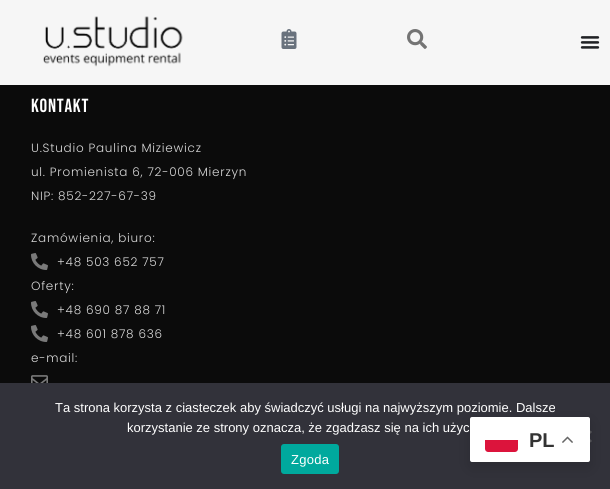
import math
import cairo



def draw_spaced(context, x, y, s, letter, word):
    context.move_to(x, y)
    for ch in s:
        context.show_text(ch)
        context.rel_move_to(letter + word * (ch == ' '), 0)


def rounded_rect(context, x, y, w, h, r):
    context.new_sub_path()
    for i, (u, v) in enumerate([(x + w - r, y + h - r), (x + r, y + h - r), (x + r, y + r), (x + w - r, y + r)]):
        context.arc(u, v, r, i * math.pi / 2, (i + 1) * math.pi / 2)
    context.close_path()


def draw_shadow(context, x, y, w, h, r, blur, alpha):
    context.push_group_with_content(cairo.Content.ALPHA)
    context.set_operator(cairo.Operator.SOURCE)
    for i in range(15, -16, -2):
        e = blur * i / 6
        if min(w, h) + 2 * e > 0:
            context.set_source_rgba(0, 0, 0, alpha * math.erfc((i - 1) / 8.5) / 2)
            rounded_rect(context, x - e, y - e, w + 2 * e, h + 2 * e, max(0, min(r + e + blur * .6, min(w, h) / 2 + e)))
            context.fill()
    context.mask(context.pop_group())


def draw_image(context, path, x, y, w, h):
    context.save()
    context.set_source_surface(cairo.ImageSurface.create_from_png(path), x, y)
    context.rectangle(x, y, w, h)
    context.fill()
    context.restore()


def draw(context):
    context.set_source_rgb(11 / 255, 11 / 255, 11 / 255)
    context.paint()
    context.set_source_rgb(246 / 255, 246 / 255, 246 / 255)
    context.rectangle(0, 0, 610, 85)
    context.fill()
    draw_image(context, "images/1.png", 43, 16, 140, 51)
    draw_image(context, "images/2.png", 281, 29, 16, 20)
    draw_image(context, "images/3.png", 407, 29, 20, 20)
    draw_image(context, "images/4.png", 580, 36, 20, 13)
    draw_image(context, "images/5.png", 31, 253, 17, 17)
    draw_image(context, "images/5.png", 31, 301, 17, 17)
    draw_image(context, "images/5.png", 31, 325, 17, 17)
    draw_image(context, "images/6.png", 31, 375, 17, 8)
    context.set_source_rgb(50 / 255, 50 / 255, 58 / 255)
    context.rectangle(0, 383, 610, 106)
    context.fill()
    context.set_source_rgb(89 / 255, 89 / 255, 93 / 255)
    context.new_path()
    context.move_to(590.5, 430.5)
    context.line_to(592, 432)
    context.line_to(581.5, 442.5)
    context.line_to(580, 441)
    context.close_path()
    context.fill()
    context.new_path()
    context.move_to(580, 432)
    context.line_to(581.5, 430.5)
    context.line_to(592, 441)
    context.line_to(590.5, 442.5)
    context.close_path()
    context.fill()
    context.set_source_rgb(0, 169 / 255, 157 / 255)
    rounded_rect(context, 281, 444, 58, 30, 3)
    context.fill()
    context.set_source_rgb(0, 0, 0)
    draw_shadow(context, 470, 422, 120, 45, 2, 7.5, 0.15)
    context.set_source_rgb(1, 1, 1)
    rounded_rect(context, 470, 417, 120, 45, 2)
    context.fill()
    context.set_source_rgb(220 / 255, 20 / 255, 60 / 255)
    context.new_path()
    context.move_to(485, 440)
    context.line_to(518, 440)
    context.line_to(518, 449)
    context.curve_to(518, 450.5, 516.5, 452, 515, 452)
    context.line_to(488, 452)
    context.curve_to(486.5, 452, 485, 450.5, 485, 449)
    context.close_path()
    context.fill()
    draw_image(context, "images/7.png", 562, 436, 11, 7)
    context.select_font_face("Bebas Neue")
    context.set_font_size(19)
    context.set_source_rgb(1, 1, 1)
    draw_spaced(context, 31, 112, "KONTAKT", 0.75, 0)
    context.select_font_face("Poppins Light")
    context.set_font_size(12)
    context.set_source_rgb(218 / 255, 218 / 255, 218 / 255)
    draw_spaced(context, 31, 152, "U.Studio Paulina Miziewicz", 0.75, 0)
    draw_spaced(context, 31, 176, "ul. Promienista 6, 72-006 Mierzyn", 0.75, 0)
    draw_spaced(context, 31, 200, "NIP: 852-227-67-39", 0.75, 0)
    draw_spaced(context, 31, 242, "Zamówienia, biuro:", 0.75, 0)
    draw_spaced(context, 57, 266, "+48 503 652 757", 0.75, 0)
    draw_spaced(context, 31, 290, "Oferty:", 0.75, 0)
    draw_spaced(context, 57, 314, "+48 690 87 88 71", 0.75, 0)
    draw_spaced(context, 57, 338, "+48 601 878 636", 0.75, 0)
    draw_spaced(context, 31, 362, "e-mail:", 0.75, 0)
    context.select_font_face("Liberation Sans")
    context.set_font_size(13)
    context.set_source_rgb(1, 1, 1)
    context.move_to(55, 412)
    context.show_text("Ta strona korzysta z ciasteczek aby świadczyć usługi na najwyższym poziomie. Dalsze")
    context.move_to(127, 432)
    context.show_text("korzystanie ze strony oznacza, że zgadzasz się na ich użyc")
    draw_spaced(context, 291, 464, "Zgoda", 0.25, 0)
    context.select_font_face("Liberation Sans", cairo.FontSlant.NORMAL, cairo.FontWeight.BOLD)
    context.set_font_size(20)
    context.set_source_rgb(51 / 255, 51 / 255, 51 / 255)
    context.move_to(529, 447)
    context.show_text("PL")


surface = cairo.ImageSurface(cairo.Format.RGB24, 610, 489)
context = cairo.Context(surface)
options = cairo.FontOptions()
options.set_hint_metrics(cairo.HintMetrics.OFF)
options.set_hint_style(cairo.HintStyle.NONE)
context.set_font_options(options)
context.set_miter_limit(4)
draw(context)
surface.write_to_png("out.png")
